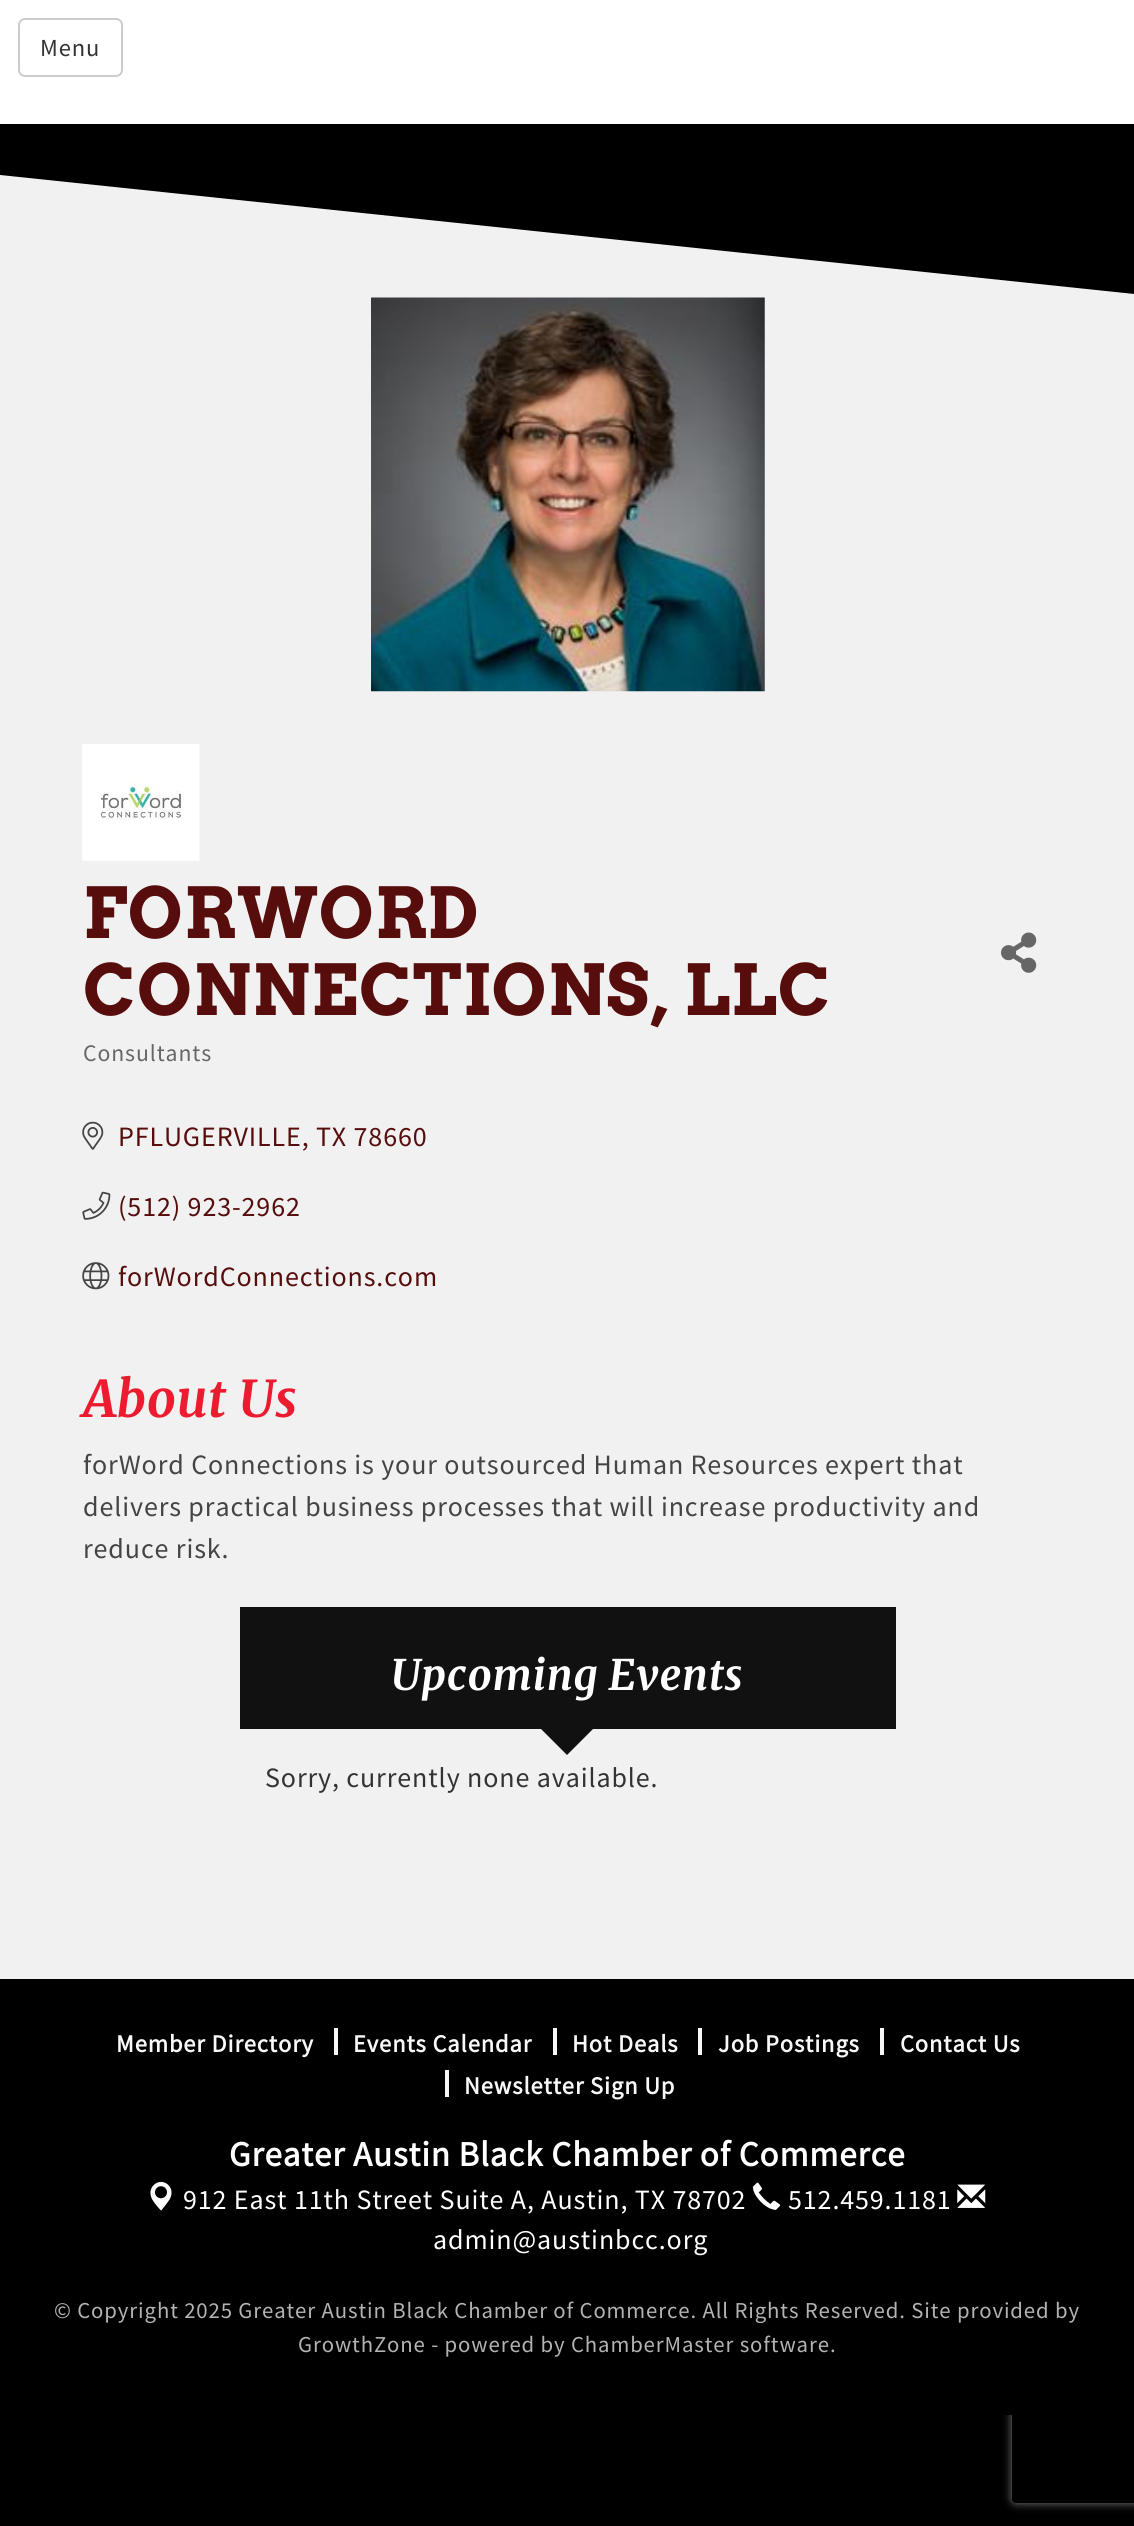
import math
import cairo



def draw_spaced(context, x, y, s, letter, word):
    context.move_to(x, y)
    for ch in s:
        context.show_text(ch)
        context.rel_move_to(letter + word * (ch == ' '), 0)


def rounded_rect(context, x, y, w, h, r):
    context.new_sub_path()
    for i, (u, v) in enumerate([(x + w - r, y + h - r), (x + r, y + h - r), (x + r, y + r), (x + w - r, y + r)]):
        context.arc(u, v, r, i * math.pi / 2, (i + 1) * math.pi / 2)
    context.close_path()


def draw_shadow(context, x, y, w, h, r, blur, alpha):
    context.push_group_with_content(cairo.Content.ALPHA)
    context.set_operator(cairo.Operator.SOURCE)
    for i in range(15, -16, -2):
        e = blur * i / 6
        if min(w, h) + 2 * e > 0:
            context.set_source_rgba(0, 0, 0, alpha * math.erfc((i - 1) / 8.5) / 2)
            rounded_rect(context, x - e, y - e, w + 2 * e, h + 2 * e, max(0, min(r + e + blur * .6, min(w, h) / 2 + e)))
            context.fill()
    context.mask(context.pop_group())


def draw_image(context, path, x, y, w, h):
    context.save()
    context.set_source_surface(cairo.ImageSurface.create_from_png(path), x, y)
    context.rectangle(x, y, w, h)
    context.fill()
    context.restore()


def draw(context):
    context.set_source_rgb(0, 0, 0)
    context.paint()
    context.set_source_rgb(1, 1, 1)
    context.rectangle(0, 0, 1134, 124)
    context.fill()
    rounded_rect(context, 19, 19, 103, 57, 6)
    context.set_source_rgb(204 / 255, 204 / 255, 204 / 255)
    context.stroke()
    context.set_source_rgb(241 / 255, 241 / 255, 241 / 255)
    context.new_path()
    context.move_to(0, 175)
    context.line_to(1134, 294)
    context.line_to(1134, 2149)
    context.line_to(0, 2029)
    context.close_path()
    context.fill()
    draw_image(context, "images/1.png", 371, 297, 394, 395)
    draw_image(context, "images/2.png", 82, 744, 118, 117)
    draw_image(context, "images/3.png", 1001, 932, 36, 41)
    draw_image(context, "images/4.png", 82, 1121, 22, 29)
    draw_image(context, "images/5.png", 82, 1191, 29, 29)
    draw_image(context, "images/6.png", 82, 1262, 28, 28)
    context.set_source_rgb(17 / 255, 17 / 255, 17 / 255)
    context.rectangle(240, 1607, 656, 122)
    context.fill()
    context.new_path()
    context.move_to(532, 1720)
    context.line_to(602, 1720)
    context.line_to(567, 1755)
    context.close_path()
    context.fill()
    context.save()
    context.set_fill_rule(cairo.FillRule.EVEN_ODD)
    context.new_path()
    context.move_to(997, 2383)
    context.line_to(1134, 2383)
    context.line_to(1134, 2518)
    context.line_to(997, 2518)
    context.close_path()
    context.move_to(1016, 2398)
    context.line_to(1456, 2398)
    context.curve_to(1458, 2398, 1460, 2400, 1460, 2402)
    context.line_to(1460, 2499)
    context.curve_to(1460, 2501, 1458, 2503, 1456, 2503)
    context.line_to(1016, 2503)
    context.curve_to(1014, 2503, 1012, 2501, 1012, 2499)
    context.line_to(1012, 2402)
    context.curve_to(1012, 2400, 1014, 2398, 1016, 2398)
    context.close_path()
    context.clip()
    context.set_source_rgb(128 / 255, 128 / 255, 128 / 255)
    draw_shadow(context, 1012, 2398, 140, 105, 4, 4.5, 1)
    context.restore()
    context.set_source_rgb(0, 0, 0)
    context.rectangle(0, 1979, 1134, 436)
    context.fill()
    context.set_source_rgb(248 / 255, 248 / 255, 248 / 255)
    context.rectangle(334, 2028, 4, 27)
    context.fill()
    context.rectangle(553, 2028, 4, 27)
    context.fill()
    context.rectangle(698, 2028, 4, 27)
    context.fill()
    context.rectangle(880, 2028, 4, 27)
    context.fill()
    context.rectangle(445, 2070, 4, 27)
    context.fill()
    draw_image(context, "images/7.png", 150, 2181, 22, 30)
    draw_image(context, "images/8.png", 752, 2182, 29, 28)
    draw_image(context, "images/9.png", 957, 2184, 29, 24)
    context.select_font_face("Source Sans Pro")
    context.set_font_size(24.5)
    context.set_source_rgb(51 / 255, 51 / 255, 51 / 255)
    draw_spaced(context, 40, 56, "Menu", 0.88, 0)
    context.select_font_face("Arvo", cairo.FontSlant.NORMAL, cairo.FontWeight.BOLD)
    context.set_font_size(70)
    context.set_source_rgb(88 / 255, 13 / 255, 13 / 255)
    draw_spaced(context, 83, 938, "FORWORD", 0.88, 0)
    draw_spaced(context, 83, 1015, "CONNECTIONS, LLC", 0.88, 0)
    context.select_font_face("Source Sans Pro")
    context.set_font_size(23.75)
    context.set_source_rgb(103 / 255, 103 / 255, 103 / 255)
    draw_spaced(context, 83, 1061, "Consultants", 0.88, 0)
    context.set_font_size(28)
    context.set_source_rgb(88 / 255, 13 / 255, 13 / 255)
    draw_spaced(context, 118, 1146, "PFLUGERVILLE, TX 78660", 0.88, 0)
    draw_spaced(context, 118, 1216, "(512) 923-2962", 0.88, 0)
    draw_spaced(context, 118, 1286, "forWordConnections.com", 0.88, 0)
    context.select_font_face("Merriweather Light", cairo.FontSlant.ITALIC)
    context.set_font_size(50.5)
    context.set_source_rgb(237 / 255, 27 / 255, 47 / 255)
    draw_spaced(context, 83, 1417, "About Us", 0.88, 0)
    context.select_font_face("Source Sans Pro")
    context.set_font_size(28)
    context.set_source_rgb(68 / 255, 68 / 255, 68 / 255)
    draw_spaced(context, 83, 1474, "forWord Connections is your outsourced Human Resources expert that", 0.88, 0)
    draw_spaced(context, 83, 1516, "delivers practical business processes that will increase productivity and", 0.88, 0)
    draw_spaced(context, 83, 1558, "reduce risk.", 0.88, 0)
    context.select_font_face("Merriweather Light", cairo.FontSlant.ITALIC)
    context.set_font_size(42)
    context.set_source_rgb(1, 1, 1)
    draw_spaced(context, 391, 1690, "Upcoming Events", 0.88, 0)
    context.select_font_face("Source Sans Pro")
    context.set_font_size(28)
    context.set_source_rgb(51 / 255, 51 / 255, 51 / 255)
    draw_spaced(context, 265, 1787, "Sorry, currently none available.", 0.88, 0)
    context.select_font_face("Source Sans Pro", cairo.FontSlant.NORMAL, cairo.FontWeight.BOLD)
    context.set_font_size(24.5)
    context.set_source_rgb(248 / 255, 248 / 255, 248 / 255)
    draw_spaced(context, 116, 2052, "Member Directory", 0.88, 0)
    draw_spaced(context, 353, 2052, "Events Calendar", 0.88, 0)
    draw_spaced(context, 572, 2052, "Hot Deals", 0.88, 0)
    draw_spaced(context, 718, 2052, "Job Postings", 0.88, 0)
    draw_spaced(context, 900, 2052, "Contact Us", 0.88, 0)
    draw_spaced(context, 464, 2094, "Newsletter Sign Up", 0.88, 0)
    context.set_font_size(35)
    context.set_source_rgb(1, 1, 1)
    draw_spaced(context, 229, 2166, "Greater Austin Black Chamber of Commerce", 0.88, 0)
    context.select_font_face("Source Sans Pro")
    context.set_font_size(28)
    draw_spaced(context, 183, 2209, "912 East 11th Street Suite A, Austin, TX 78702", 0.88, 0)
    draw_spaced(context, 788, 2209, "512.459.1181", 0.88, 0)
    draw_spaced(context, 433, 2249, "admin@austinbcc.org", 0.88, 0)
    context.set_font_size(22.75)
    context.set_source_rgb(179 / 255, 179 / 255, 179 / 255)
    draw_spaced(context, 54, 2318, "© Copyright 2025 Greater Austin Black Chamber of Commerce. All Rights Reserved. Site provided by", 0.88, 0)
    draw_spaced(context, 298, 2352, "GrowthZone - powered by ChamberMaster software.", 0.88, 0)


surface = cairo.ImageSurface(cairo.Format.RGB24, 1134, 2526)
context = cairo.Context(surface)
options = cairo.FontOptions()
options.set_hint_metrics(cairo.HintMetrics.OFF)
options.set_hint_style(cairo.HintStyle.NONE)
context.set_font_options(options)
context.set_miter_limit(4)
draw(context)
surface.write_to_png("out.png")
